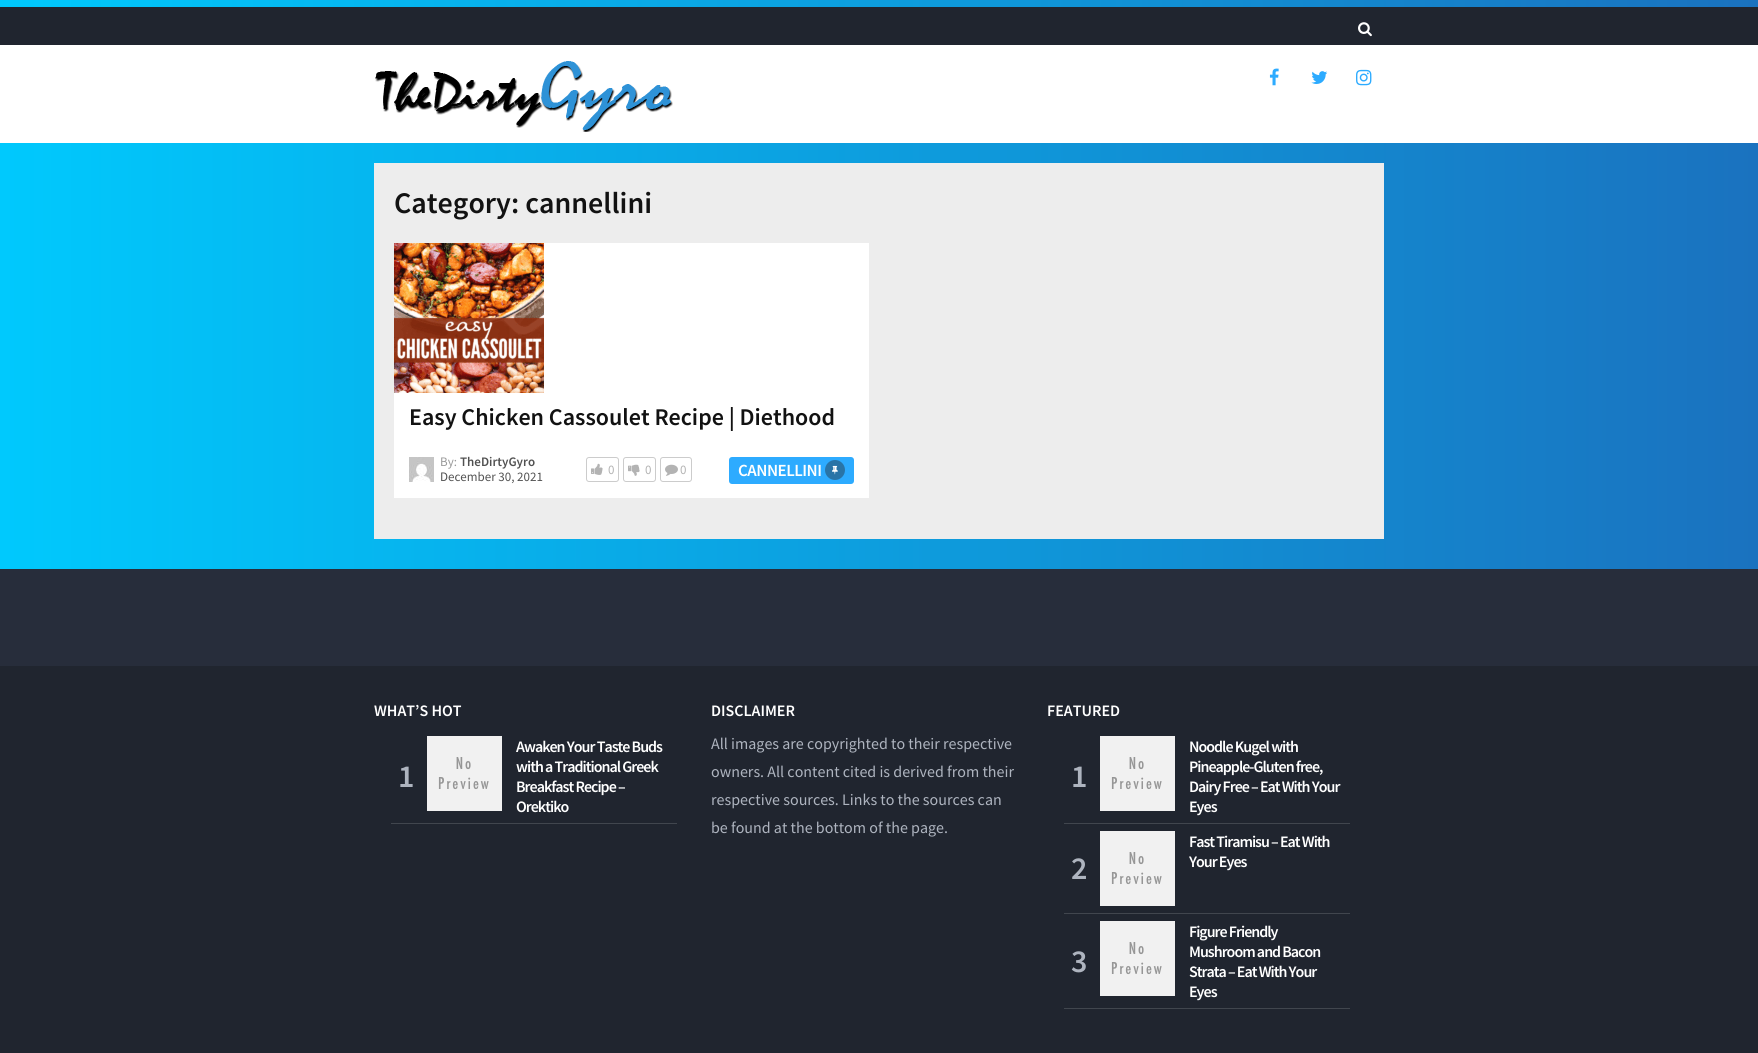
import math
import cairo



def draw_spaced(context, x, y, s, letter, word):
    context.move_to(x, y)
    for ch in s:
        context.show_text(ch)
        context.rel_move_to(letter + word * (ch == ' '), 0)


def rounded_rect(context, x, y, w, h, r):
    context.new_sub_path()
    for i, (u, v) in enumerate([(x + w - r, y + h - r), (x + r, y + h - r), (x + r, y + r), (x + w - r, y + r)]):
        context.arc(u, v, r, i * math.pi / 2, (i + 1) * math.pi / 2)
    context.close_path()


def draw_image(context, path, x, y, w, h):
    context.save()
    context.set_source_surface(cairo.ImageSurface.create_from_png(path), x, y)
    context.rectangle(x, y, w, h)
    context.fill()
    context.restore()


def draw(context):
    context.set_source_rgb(1, 1, 1)
    context.paint()
    gradient = cairo.LinearGradient(0, 698, 1758, 698)
    gradient.add_color_stop_rgba(0, 0, 201 / 255, 253 / 255, 1)
    gradient.add_color_stop_rgba(1, 26 / 255, 114 / 255, 191 / 255, 1)
    context.set_source(gradient)
    context.rectangle(0, 0, 1758, 569)
    context.fill()
    context.set_source_rgb(32 / 255, 37 / 255, 47 / 255)
    context.rectangle(0, 7, 1758, 38)
    context.fill()
    draw_image(context, "images/1.png", 1358, 22, 14, 15)
    context.set_source_rgb(1, 1, 1)
    context.rectangle(0, 45, 1758, 98)
    context.fill()
    draw_image(context, "images/2.png", 375, 61, 298, 71)
    draw_image(context, "images/3.png", 1269, 68, 10, 18)
    draw_image(context, "images/4.png", 1311, 71, 17, 13)
    draw_image(context, "images/5.png", 1356, 69, 16, 17)
    context.set_source_rgb(237 / 255, 237 / 255, 237 / 255)
    context.rectangle(374, 163, 1010, 376)
    context.fill()
    context.set_source_rgb(1, 1, 1)
    context.rectangle(394, 243, 475, 255)
    context.fill()
    draw_image(context, "images/6.png", 394, 243, 150, 150)
    draw_image(context, "images/7.png", 409, 457, 25, 25)
    rounded_rect(context, 586.5, 457.5, 32, 24, 2.5)
    context.set_source_rgb(204 / 255, 204 / 255, 204 / 255)
    context.set_line_width(1)
    context.stroke()
    draw_image(context, "images/8.png", 591, 463, 12, 12)
    rounded_rect(context, 623.5, 457.5, 32, 24, 2.5)
    context.stroke()
    draw_image(context, "images/9.png", 628, 464, 12, 12)
    rounded_rect(context, 660.5, 457.5, 31, 24, 2.5)
    context.stroke()
    draw_image(context, "images/10.png", 665, 464, 13, 12)
    context.set_source_rgb(45 / 255, 171 / 255, 1)
    rounded_rect(context, 729, 457, 125, 27, 3)
    context.fill()
    context.set_source_rgb(41 / 255, 116 / 255, 167 / 255)
    context.arc(835, 470, 10, 0, 2 * math.pi)
    context.fill()
    draw_image(context, "images/11.png", 832, 465, 6, 10)
    context.set_source_rgb(39 / 255, 45 / 255, 59 / 255)
    context.rectangle(0, 569, 1758, 97)
    context.fill()
    context.set_source_rgb(32 / 255, 37 / 255, 47 / 255)
    context.rectangle(0, 666, 1758, 387)
    context.fill()
    context.set_source_rgb(65 / 255, 70 / 255, 78 / 255)
    context.rectangle(391, 823, 286, 1)
    context.fill()
    draw_image(context, "images/12.png", 427, 736, 75, 75)
    context.rectangle(1064, 823, 286, 1)
    context.fill()
    draw_image(context, "images/12.png", 1100, 736, 75, 75)
    context.rectangle(1064, 913, 286, 1)
    context.fill()
    draw_image(context, "images/12.png", 1100, 831, 75, 75)
    context.rectangle(1064, 1008, 286, 1)
    context.fill()
    draw_image(context, "images/12.png", 1100, 921, 75, 75)
    context.select_font_face("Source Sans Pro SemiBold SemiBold")
    context.set_font_size(30)
    context.set_source_rgb(18 / 255, 18 / 255, 18 / 255)
    context.move_to(394, 213)
    context.show_text("Category: cannellini")
    context.set_font_size(24)
    context.move_to(409, 425)
    context.show_text("Easy Chicken Cassoulet Recipe | Diethood")
    context.select_font_face("Source Sans Pro")
    context.set_font_size(13)
    context.set_source_rgb(153 / 255, 153 / 255, 153 / 255)
    context.move_to(440, 466)
    context.show_text("By:")
    context.select_font_face("Source Sans Pro SemiBold SemiBold")
    context.set_source_rgb(81 / 255, 81 / 255, 81 / 255)
    context.move_to(460, 466)
    context.show_text("TheDirtyGyro")
    context.select_font_face("Source Sans Pro")
    context.move_to(440, 481)
    context.show_text("December 30, 2021")
    context.set_source_rgb(179 / 255, 179 / 255, 179 / 255)
    context.move_to(608, 474)
    context.show_text("0")
    context.move_to(645, 474)
    context.show_text("0")
    context.move_to(680, 474)
    context.show_text("0")
    context.select_font_face("Source Sans Pro SemiBold SemiBold")
    context.set_font_size(17)
    context.set_source_rgb(1, 1, 1)
    draw_spaced(context, 738, 476, "CANNELLINI", -0.5, 0)
    context.set_font_size(16)
    context.move_to(374, 716)
    context.show_text("WHAT’S HOT")
    context.set_font_size(32)
    context.set_source_rgb(174 / 255, 180 / 255, 191 / 255)
    context.move_to(398, 787)
    context.show_text("1")
    context.set_font_size(16)
    context.set_source_rgb(1, 1, 1)
    draw_spaced(context, 516, 752, "Awaken Your Taste Buds", -1, 0)
    draw_spaced(context, 516, 772, "with a Traditional Greek", -1, 0)
    draw_spaced(context, 516, 792, "Breakfast Recipe –", -1, 0)
    draw_spaced(context, 516, 812, "Orektiko", -1, 0)
    context.move_to(711, 716)
    context.show_text("DISCLAIMER")
    context.select_font_face("Source Sans Pro")
    context.set_source_rgb(174 / 255, 180 / 255, 191 / 255)
    context.move_to(711, 749)
    context.show_text("All images are copyrighted to their respective")
    context.move_to(711, 777)
    context.show_text("owners. All content cited is derived from their")
    context.move_to(711, 805)
    context.show_text("respective sources. Links to the sources can")
    context.move_to(711, 833)
    context.show_text("be found at the bottom of the page.")
    context.select_font_face("Source Sans Pro SemiBold SemiBold")
    context.set_source_rgb(1, 1, 1)
    context.move_to(1047, 716)
    context.show_text("FEATURED")
    context.set_font_size(32)
    context.set_source_rgb(174 / 255, 180 / 255, 191 / 255)
    context.move_to(1071, 787)
    context.show_text("1")
    context.set_font_size(16)
    context.set_source_rgb(1, 1, 1)
    draw_spaced(context, 1189, 752, "Noodle Kugel with", -1, 0)
    draw_spaced(context, 1189, 772, "Pineapple-Gluten free,", -1, 0)
    draw_spaced(context, 1189, 792, "Dairy Free – Eat With Your", -1, 0)
    draw_spaced(context, 1189, 812, "Eyes", -1, 0)
    context.set_font_size(32)
    context.set_source_rgb(174 / 255, 180 / 255, 191 / 255)
    context.move_to(1071, 879)
    context.show_text("2")
    context.set_font_size(16)
    context.set_source_rgb(1, 1, 1)
    draw_spaced(context, 1189, 847, "Fast Tiramisu – Eat With", -1, 0)
    draw_spaced(context, 1189, 867, "Your Eyes", -1, 0)
    context.set_font_size(32)
    context.set_source_rgb(174 / 255, 180 / 255, 191 / 255)
    context.move_to(1071, 972)
    context.show_text("3")
    context.set_font_size(16)
    context.set_source_rgb(1, 1, 1)
    draw_spaced(context, 1189, 937, "Figure Friendly", -1, 0)
    draw_spaced(context, 1189, 957, "Mushroom and Bacon", -1, 0)
    draw_spaced(context, 1189, 977, "Strata – Eat With Your", -1, 0)
    draw_spaced(context, 1189, 997, "Eyes", -1, 0)


surface = cairo.ImageSurface(cairo.Format.RGB24, 1758, 1053)
context = cairo.Context(surface)
options = cairo.FontOptions()
options.set_hint_metrics(cairo.HintMetrics.OFF)
options.set_hint_style(cairo.HintStyle.NONE)
context.set_font_options(options)
context.set_miter_limit(4)
draw(context)
surface.write_to_png("out.png")
